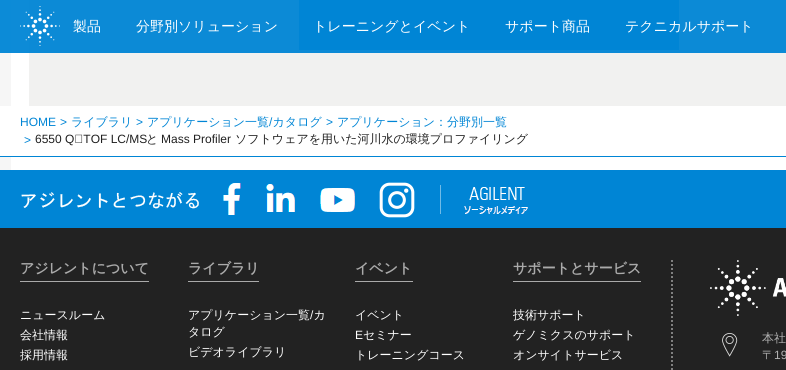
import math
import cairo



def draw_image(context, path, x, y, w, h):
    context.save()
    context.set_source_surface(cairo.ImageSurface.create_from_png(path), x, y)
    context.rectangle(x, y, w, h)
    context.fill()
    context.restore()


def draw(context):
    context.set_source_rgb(246 / 255, 246 / 255, 246 / 255)
    context.paint()
    context.set_source_rgb(12 / 255, 139 / 255, 215 / 255)
    context.rectangle(0, 0, 11, 53)
    context.fill()
    context.set_source_rgb(1, 1, 1)
    context.rectangle(11, 53, 775, 117)
    context.fill()
    context.set_source_rgb(13 / 255, 139 / 255, 215 / 255)
    context.rectangle(11, 0, 18, 53)
    context.fill()
    context.set_source_rgb(241 / 255, 241 / 255, 240 / 255)
    context.rectangle(29, 53, 757, 53)
    context.fill()
    context.set_source_rgb(12 / 255, 138 / 255, 214 / 255)
    context.rectangle(29, 0, 757, 53)
    context.fill()
    context.set_source_rgb(0, 133 / 255, 213 / 255)
    context.rectangle(299, 0, 380, 50)
    context.fill()
    draw_image(context, "images/1.png", 20, 6, 40, 40)
    context.set_source_rgb(1, 1, 1)
    context.rectangle(0, 106, 11, 50)
    context.fill()
    context.set_source_rgb(0, 133 / 255, 213 / 255)
    context.rectangle(0, 156, 786, 1)
    context.fill()
    context.set_source_rgb(34 / 255, 34 / 255, 34 / 255)
    context.rectangle(0, 228, 786, 142)
    context.fill()
    context.set_source_rgb(0, 133 / 255, 213 / 255)
    context.rectangle(0, 170, 786, 58)
    context.fill()
    draw_image(context, "images/2.png", 21, 192, 178, 17)
    draw_image(context, "images/3.png", 223, 183, 18, 32)
    draw_image(context, "images/4.png", 266, 184, 29, 28)
    draw_image(context, "images/5.png", 320, 188, 35, 24)
    draw_image(context, "images/6.png", 379, 182, 36, 36)
    context.set_source_rgb(112 / 255, 187 / 255, 231 / 255)
    context.rectangle(440, 185, 1, 29)
    context.fill()
    draw_image(context, "images/7.png", 464, 187, 64, 27)
    context.set_source_rgb(170 / 255, 170 / 255, 170 / 255)
    context.rectangle(20, 281, 129, 1)
    context.fill()
    context.rectangle(188, 281, 71, 1)
    context.fill()
    context.rectangle(355, 281, 58, 1)
    context.fill()
    context.rectangle(513, 281, 128, 1)
    context.fill()
    context.new_path()
    context.move_to(672, 260)
    context.line_to(672, 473)
    context.set_source_rgb(128 / 255, 128 / 255, 128 / 255)
    context.set_dash([2, 2])
    context.stroke()
    draw_image(context, "images/8.png", 710, 260, 76, 56)
    draw_image(context, "images/9.png", 722, 333, 16, 24)
    context.select_font_face("WenQuanYi Zen Hei Medium")
    context.set_font_size(14)
    context.set_source_rgb(1, 1, 1)
    context.move_to(73, 31)
    context.show_text("製品")
    context.move_to(136, 31)
    context.show_text("分野別ソリューション")
    context.move_to(313, 31)
    context.show_text("トレーニングとイベント")
    context.move_to(505, 31)
    context.show_text("サポート商品")
    context.move_to(625, 31)
    context.show_text("テクニカルサポート")
    context.select_font_face("Liberation Sans")
    context.set_font_size(12)
    context.set_source_rgb(0, 133 / 255, 213 / 255)
    context.move_to(20, 126)
    context.show_text("HOME")
    context.move_to(60, 126)
    context.show_text(">")
    context.select_font_face("WenQuanYi Zen Hei Medium")
    context.move_to(71, 126)
    context.show_text("ライブラリ")
    context.move_to(147, 126)
    context.show_text("アプリケーション一覧 カタログ")
    context.select_font_face("Liberation Sans")
    context.move_to(136, 126)
    context.show_text(">")
    context.move_to(269, 126)
    context.show_text("/")
    context.move_to(326, 126)
    context.show_text(">")
    context.select_font_face("WenQuanYi Zen Hei Medium")
    context.move_to(337, 126)
    context.show_text("アプリケーション：分野別一覧")
    context.select_font_face("Liberation Sans")
    context.move_to(24, 144)
    context.show_text(">")
    context.set_source_rgb(32 / 255, 32 / 255, 32 / 255)
    context.move_to(35, 143)
    context.show_text("6550 Q‑TOF LC/MS")
    context.select_font_face("WenQuanYi Zen Hei Medium")
    context.move_to(146, 143)
    context.show_text("と")
    context.select_font_face("Liberation Sans")
    context.move_to(161, 143)
    context.show_text("Mass Profiler")
    context.select_font_face("WenQuanYi Zen Hei Medium")
    context.move_to(235, 143)
    context.show_text("ソフトウェアを用いた河川水の環境プロファイリング")
    context.select_font_face("WenQuanYi Zen Hei", cairo.FontSlant.NORMAL, cairo.FontWeight.BOLD)
    context.set_font_size(14)
    context.set_source_rgb(170 / 255, 170 / 255, 170 / 255)
    context.move_to(20, 273)
    context.show_text("アジレントについて")
    context.select_font_face("WenQuanYi Zen Hei Medium")
    context.set_font_size(12)
    context.set_source_rgb(1, 1, 1)
    context.move_to(20, 319)
    context.show_text("ニュースルーム")
    context.move_to(20, 339)
    context.show_text("会社情報")
    context.move_to(20, 359)
    context.show_text("採用情報")
    context.select_font_face("WenQuanYi Zen Hei", cairo.FontSlant.NORMAL, cairo.FontWeight.BOLD)
    context.set_font_size(14)
    context.set_source_rgb(170 / 255, 170 / 255, 170 / 255)
    context.move_to(188, 273)
    context.show_text("ライブラリ")
    context.select_font_face("WenQuanYi Zen Hei Medium")
    context.set_font_size(12)
    context.set_source_rgb(1, 1, 1)
    context.move_to(188, 319)
    context.show_text("アプリケーション一覧 カ")
    context.select_font_face("Liberation Sans")
    context.move_to(310, 319)
    context.show_text("/")
    context.select_font_face("WenQuanYi Zen Hei Medium")
    context.move_to(188, 336)
    context.show_text("タログ")
    context.move_to(188, 356)
    context.show_text("ビデオライブラリ")
    context.select_font_face("WenQuanYi Zen Hei", cairo.FontSlant.NORMAL, cairo.FontWeight.BOLD)
    context.set_font_size(14)
    context.set_source_rgb(170 / 255, 170 / 255, 170 / 255)
    context.move_to(355, 273)
    context.show_text("イベント")
    context.select_font_face("WenQuanYi Zen Hei Medium")
    context.set_font_size(12)
    context.set_source_rgb(1, 1, 1)
    context.move_to(355, 319)
    context.show_text("イベント")
    context.select_font_face("Liberation Sans")
    context.move_to(355, 339)
    context.show_text("E")
    context.select_font_face("WenQuanYi Zen Hei Medium")
    context.move_to(363, 339)
    context.show_text("セミナー")
    context.move_to(355, 359)
    context.show_text("トレーニングコース")
    context.select_font_face("WenQuanYi Zen Hei", cairo.FontSlant.NORMAL, cairo.FontWeight.BOLD)
    context.set_font_size(14)
    context.set_source_rgb(170 / 255, 170 / 255, 170 / 255)
    context.move_to(513, 273)
    context.show_text("サポートとサービス")
    context.select_font_face("WenQuanYi Zen Hei Medium")
    context.set_font_size(12)
    context.set_source_rgb(1, 1, 1)
    context.move_to(513, 319)
    context.show_text("技術サポート")
    context.move_to(513, 339)
    context.show_text("ゲノミクスのサポート")
    context.move_to(513, 359)
    context.show_text("オンサイトサービス")
    context.set_source_rgb(178 / 255, 178 / 255, 178 / 255)
    context.move_to(762, 342)
    context.show_text("本社")
    context.move_to(762, 359)
    context.show_text("〒")
    context.select_font_face("Liberation Sans")
    context.move_to(774, 359)
    context.show_text("19")


surface = cairo.ImageSurface(cairo.Format.RGB24, 786, 370)
context = cairo.Context(surface)
options = cairo.FontOptions()
options.set_hint_metrics(cairo.HintMetrics.OFF)
options.set_hint_style(cairo.HintStyle.NONE)
context.set_font_options(options)
context.set_miter_limit(4)
draw(context)
surface.write_to_png("out.png")
